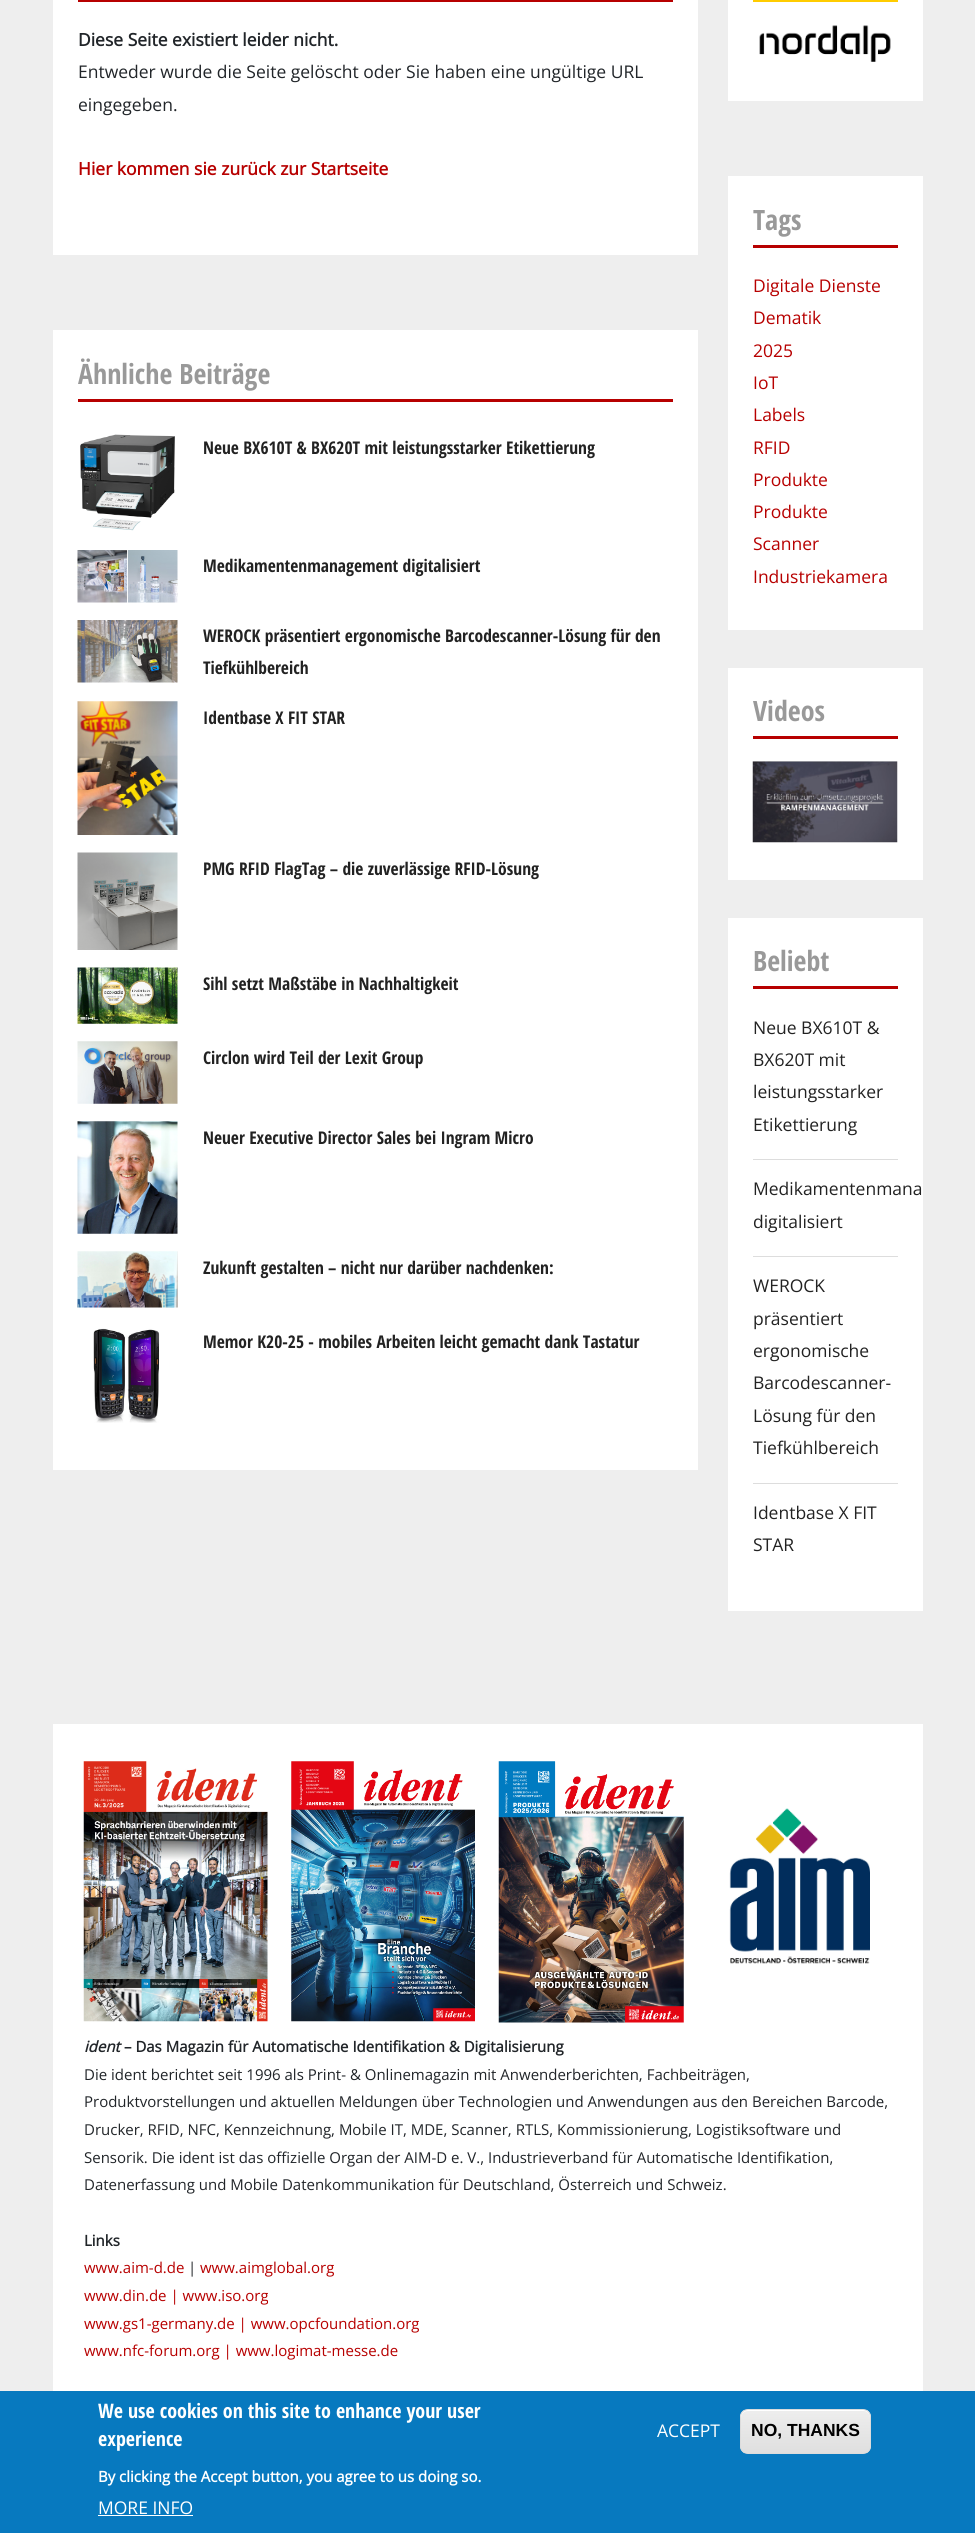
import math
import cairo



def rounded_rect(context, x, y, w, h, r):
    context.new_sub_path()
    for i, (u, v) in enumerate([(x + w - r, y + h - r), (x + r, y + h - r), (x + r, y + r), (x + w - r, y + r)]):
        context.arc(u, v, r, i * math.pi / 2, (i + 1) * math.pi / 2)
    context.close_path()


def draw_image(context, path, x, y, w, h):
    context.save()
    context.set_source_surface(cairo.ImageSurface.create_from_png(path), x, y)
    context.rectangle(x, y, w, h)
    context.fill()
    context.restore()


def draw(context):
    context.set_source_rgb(238 / 255, 238 / 255, 238 / 255)
    context.paint()
    context.set_source_rgb(1, 1, 1)
    context.rectangle(53, 0, 645, 255)
    context.fill()
    context.set_source_rgb(183 / 255, 0, 0)
    context.rectangle(78, 0, 595, 2)
    context.fill()
    context.set_source_rgb(1, 1, 1)
    context.rectangle(53, 330, 645, 1140)
    context.fill()
    context.set_source_rgb(183 / 255, 0, 0)
    context.rectangle(78, 399, 595, 3)
    context.fill()
    draw_image(context, "images/1.png", 80, 434, 95, 97)
    draw_image(context, "images/2.png", 77, 550, 101, 53)
    draw_image(context, "images/3.png", 77, 620, 101, 63)
    draw_image(context, "images/4.png", 77, 701, 101, 134)
    draw_image(context, "images/5.png", 77, 852, 101, 98)
    draw_image(context, "images/6.png", 77, 967, 101, 57)
    draw_image(context, "images/7.png", 77, 1041, 101, 63)
    draw_image(context, "images/8.png", 77, 1121, 101, 113)
    draw_image(context, "images/9.png", 77, 1251, 101, 57)
    draw_image(context, "images/10.png", 93, 1328, 67, 95)
    context.set_source_rgb(1, 1, 1)
    context.rectangle(728, 0, 195, 101)
    context.fill()
    context.set_source_rgb(1, 204 / 255, 0)
    context.rectangle(753, 0, 145, 2)
    context.fill()
    draw_image(context, "images/11.png", 759, 25, 132, 37)
    context.set_source_rgb(1, 1, 1)
    context.rectangle(728, 176, 195, 454)
    context.fill()
    context.set_source_rgb(183 / 255, 0, 0)
    context.rectangle(753, 245, 145, 3)
    context.fill()
    context.set_source_rgb(1, 1, 1)
    context.rectangle(728, 668, 195, 212)
    context.fill()
    context.set_source_rgb(183 / 255, 0, 0)
    context.rectangle(753, 736, 145, 3)
    context.fill()
    draw_image(context, "images/12.png", 752, 761, 146, 82)
    context.set_source_rgb(1, 1, 1)
    context.rectangle(728, 918, 195, 693)
    context.fill()
    context.set_source_rgb(183 / 255, 0, 0)
    context.rectangle(753, 986, 145, 3)
    context.fill()
    context.set_source_rgb(221 / 255, 221 / 255, 221 / 255)
    context.rectangle(753, 1159, 145, 1)
    context.fill()
    context.rectangle(753, 1256, 145, 1)
    context.fill()
    context.rectangle(753, 1483, 145, 1)
    context.fill()
    context.set_source_rgb(1, 1, 1)
    context.rectangle(53, 1724, 870, 667)
    context.fill()
    draw_image(context, "images/13.png", 83, 1761, 185, 261)
    draw_image(context, "images/14.png", 291, 1761, 184, 261)
    draw_image(context, "images/15.png", 498, 1761, 186, 262)
    draw_image(context, "images/16.png", 729, 1808, 141, 156)
    context.set_source_rgb(7 / 255, 121 / 255, 191 / 255)
    context.rectangle(0, 2391, 975, 142)
    context.fill()
    context.set_source_rgb(1, 1, 1)
    context.rectangle(98, 2515, 95, 1)
    context.fill()
    context.save()
    rounded_rect(context, 740, 2409, 131, 45, 8)
    context.clip()
    gradient = cairo.LinearGradient(806, 2410, 806, 2453)
    gradient.add_color_stop_rgba(0.05, 237 / 255, 237 / 255, 237 / 255, 1)
    gradient.add_color_stop_rgba(1, 223 / 255, 223 / 255, 223 / 255, 1)
    context.set_source(gradient)
    context.rectangle(740, 2410, 131, 43)
    context.fill()
    context.restore()
    context.new_path()
    context.move_to(748, 2411)
    context.line_to(864, 2411)
    context.curve_to(867, 2411, 870, 2414, 870, 2418)
    context.line_to(870, 2416)
    context.curve_to(870, 2413, 867, 2410, 864, 2410)
    context.line_to(747, 2410)
    context.curve_to(744, 2410, 741, 2413, 741, 2416)
    context.line_to(741, 2418)
    context.curve_to(741, 2414, 744, 2411, 748, 2411)
    context.close_path()
    context.fill()
    rounded_rect(context, 740.5, 2409.5, 130, 44, 7.5)
    context.set_source_rgb(220 / 255, 220 / 255, 220 / 255)
    context.set_line_width(1)
    context.stroke()
    context.select_font_face("Open Sans", cairo.FontSlant.NORMAL, cairo.FontWeight.BOLD)
    context.set_font_size(17.5)
    context.set_source_rgb(33 / 255, 37 / 255, 41 / 255)
    context.move_to(78, 46)
    context.show_text("Diese Seite existiert leider nicht.")
    context.select_font_face("Open Sans")
    context.move_to(78, 78)
    context.show_text("Entweder wurde die Seite gelöscht oder Sie haben eine ungültige URL")
    context.move_to(78, 111)
    context.show_text("eingegeben.")
    context.select_font_face("Open Sans", cairo.FontSlant.NORMAL, cairo.FontWeight.BOLD)
    context.set_source_rgb(183 / 255, 0, 0)
    context.move_to(78, 175)
    context.show_text("Hier kommen sie zurück zur Startseite")
    context.select_font_face("Open Sans Condensed", cairo.FontSlant.NORMAL, cairo.FontWeight.BOLD)
    context.set_font_size(28)
    context.set_source_rgb(153 / 255, 153 / 255, 153 / 255)
    context.move_to(78, 384)
    context.show_text("Ähnliche Beiträge")
    context.set_font_size(17.5)
    context.set_source_rgb(34 / 255, 34 / 255, 34 / 255)
    context.move_to(203, 454)
    context.show_text("Neue BX610T & BX620T mit leistungsstarker Etikettierung")
    context.move_to(203, 572)
    context.show_text("Medikamentenmanagement digitalisiert")
    context.move_to(203, 642)
    context.show_text("WEROCK präsentiert ergonomische Barcodescanner-Lösung für den")
    context.move_to(203, 674)
    context.show_text("Tiefkühlbereich")
    context.move_to(203, 724)
    context.show_text("Identbase X FIT STAR")
    context.move_to(203, 875)
    context.show_text("PMG RFID FlagTag – die zuverlässige RFID-Lösung")
    context.move_to(203, 990)
    context.show_text("Sihl setzt Maßstäbe in Nachhaltigkeit")
    context.move_to(203, 1064)
    context.show_text("Circlon wird Teil der Lexit Group")
    context.move_to(203, 1144)
    context.show_text("Neuer Executive Director Sales bei Ingram Micro")
    context.move_to(203, 1274)
    context.show_text("Zukunft gestalten – nicht nur darüber nachdenken:")
    context.move_to(203, 1348)
    context.show_text("Memor K20-25 - mobiles Arbeiten leicht gemacht dank Tastatur")
    context.set_font_size(28)
    context.set_source_rgb(153 / 255, 153 / 255, 153 / 255)
    context.move_to(753, 230)
    context.show_text("Tags")
    context.select_font_face("Open Sans")
    context.set_font_size(17.5)
    context.set_source_rgb(183 / 255, 0, 0)
    context.move_to(753, 292)
    context.show_text("Digitale Dienste")
    context.move_to(753, 324)
    context.show_text("Dematik")
    context.move_to(753, 357)
    context.show_text("2025")
    context.move_to(753, 389)
    context.show_text("IoT")
    context.move_to(753, 421)
    context.show_text("Labels")
    context.move_to(753, 454)
    context.show_text("RFID")
    context.move_to(753, 486)
    context.show_text("Produkte")
    context.move_to(753, 518)
    context.show_text("Produkte")
    context.move_to(753, 550)
    context.show_text("Scanner")
    context.move_to(753, 583)
    context.show_text("Industriekamera")
    context.select_font_face("Open Sans Condensed", cairo.FontSlant.NORMAL, cairo.FontWeight.BOLD)
    context.set_font_size(28)
    context.set_source_rgb(153 / 255, 153 / 255, 153 / 255)
    context.move_to(753, 721)
    context.show_text("Videos")
    context.move_to(753, 971)
    context.show_text("Beliebt")
    context.select_font_face("Open Sans")
    context.set_font_size(17.5)
    context.set_source_rgb(34 / 255, 34 / 255, 34 / 255)
    context.move_to(753, 1034)
    context.show_text("Neue BX610T &")
    context.move_to(753, 1066)
    context.show_text("BX620T mit")
    context.move_to(753, 1098)
    context.show_text("leistungsstarker")
    context.move_to(753, 1131)
    context.show_text("Etikettierung")
    context.move_to(753, 1195)
    context.show_text("Medikamentenmana")
    context.move_to(753, 1228)
    context.show_text("digitalisiert")
    context.move_to(753, 1292)
    context.show_text("WEROCK")
    context.move_to(753, 1325)
    context.show_text("präsentiert")
    context.move_to(753, 1357)
    context.show_text("ergonomische")
    context.move_to(753, 1389)
    context.show_text("Barcodescanner-")
    context.move_to(753, 1422)
    context.show_text("Lösung für den")
    context.move_to(753, 1454)
    context.show_text("Tiefkühlbereich")
    context.move_to(753, 1519)
    context.show_text("Identbase X FIT")
    context.move_to(753, 1551)
    context.show_text("STAR")
    context.select_font_face("Open Sans", cairo.FontSlant.ITALIC, cairo.FontWeight.BOLD)
    context.set_font_size(15)
    context.set_source_rgb(33 / 255, 37 / 255, 41 / 255)
    context.move_to(84, 2052)
    context.show_text("ident")
    context.select_font_face("Open Sans", cairo.FontSlant.NORMAL, cairo.FontWeight.BOLD)
    context.move_to(124, 2052)
    context.show_text("– Das Magazin für Automatische Identifikation & Digitalisierung")
    context.select_font_face("Open Sans")
    context.move_to(84, 2080)
    context.show_text("Die ident berichtet seit 1996 als Print- & Onlinemagazin mit Anwenderberichten, Fachbeiträgen,")
    context.move_to(84, 2107)
    context.show_text("Produktvorstellungen und aktuellen Meldungen über Technologien und Anwendungen aus den Bereichen Barcode,")
    context.move_to(84, 2135)
    context.show_text("Drucker, RFID, NFC, Kennzeichnung, Mobile IT, MDE, Scanner, RTLS, Kommissionierung, Logistiksoftware und")
    context.move_to(84, 2163)
    context.show_text("Sensorik. Die ident ist das offizielle Organ der AIM-D e. V., Industrieverband für Automatische Identifikation,")
    context.move_to(84, 2190)
    context.show_text("Datenerfassung und Mobile Datenkommunikation für Deutschland, Österreich und Schweiz.")
    context.select_font_face("Open Sans", cairo.FontSlant.NORMAL, cairo.FontWeight.BOLD)
    context.move_to(84, 2246)
    context.show_text("Links")
    context.select_font_face("Open Sans")
    context.set_source_rgb(183 / 255, 0, 0)
    context.move_to(84, 2273)
    context.show_text("www.aim-d.de")
    context.set_source_rgb(33 / 255, 37 / 255, 41 / 255)
    context.move_to(188, 2273)
    context.show_text("|")
    context.set_source_rgb(183 / 255, 0, 0)
    context.move_to(200, 2273)
    context.show_text("www.aimglobal.org")
    context.move_to(84, 2301)
    context.show_text("www.din.de | www.iso.org")
    context.move_to(84, 2329)
    context.show_text("www.gs1-germany.de | www.opcfoundation.org")
    context.move_to(84, 2356)
    context.show_text("www.nfc-forum.org | www.logimat-messe.de")
    context.select_font_face("Open Sans Condensed", cairo.FontSlant.NORMAL, cairo.FontWeight.BOLD)
    context.set_font_size(20)
    context.set_source_rgb(1, 1, 1)
    context.move_to(98, 2418)
    context.show_text("We use cookies on this site to enhance your user")
    context.move_to(98, 2446)
    context.show_text("experience")
    context.select_font_face("Open Sans", cairo.FontSlant.NORMAL, cairo.FontWeight.BOLD)
    context.set_font_size(15)
    context.move_to(98, 2482)
    context.show_text("By clicking the Accept button, you agree to us doing so.")
    context.select_font_face("Open Sans")
    context.set_font_size(17.5)
    context.move_to(98, 2514)
    context.show_text("MORE INFO")
    context.move_to(657, 2437)
    context.show_text("ACCEPT")
    context.select_font_face("Liberation Sans", cairo.FontSlant.NORMAL, cairo.FontWeight.BOLD)
    context.set_source_rgb(0, 0, 0)
    context.move_to(751, 2436)
    context.show_text("NO, THANKS")


surface = cairo.ImageSurface(cairo.Format.RGB24, 975, 2533)
context = cairo.Context(surface)
options = cairo.FontOptions()
options.set_hint_metrics(cairo.HintMetrics.OFF)
options.set_hint_style(cairo.HintStyle.NONE)
context.set_font_options(options)
context.set_miter_limit(4)
draw(context)
surface.write_to_png("out.png")
